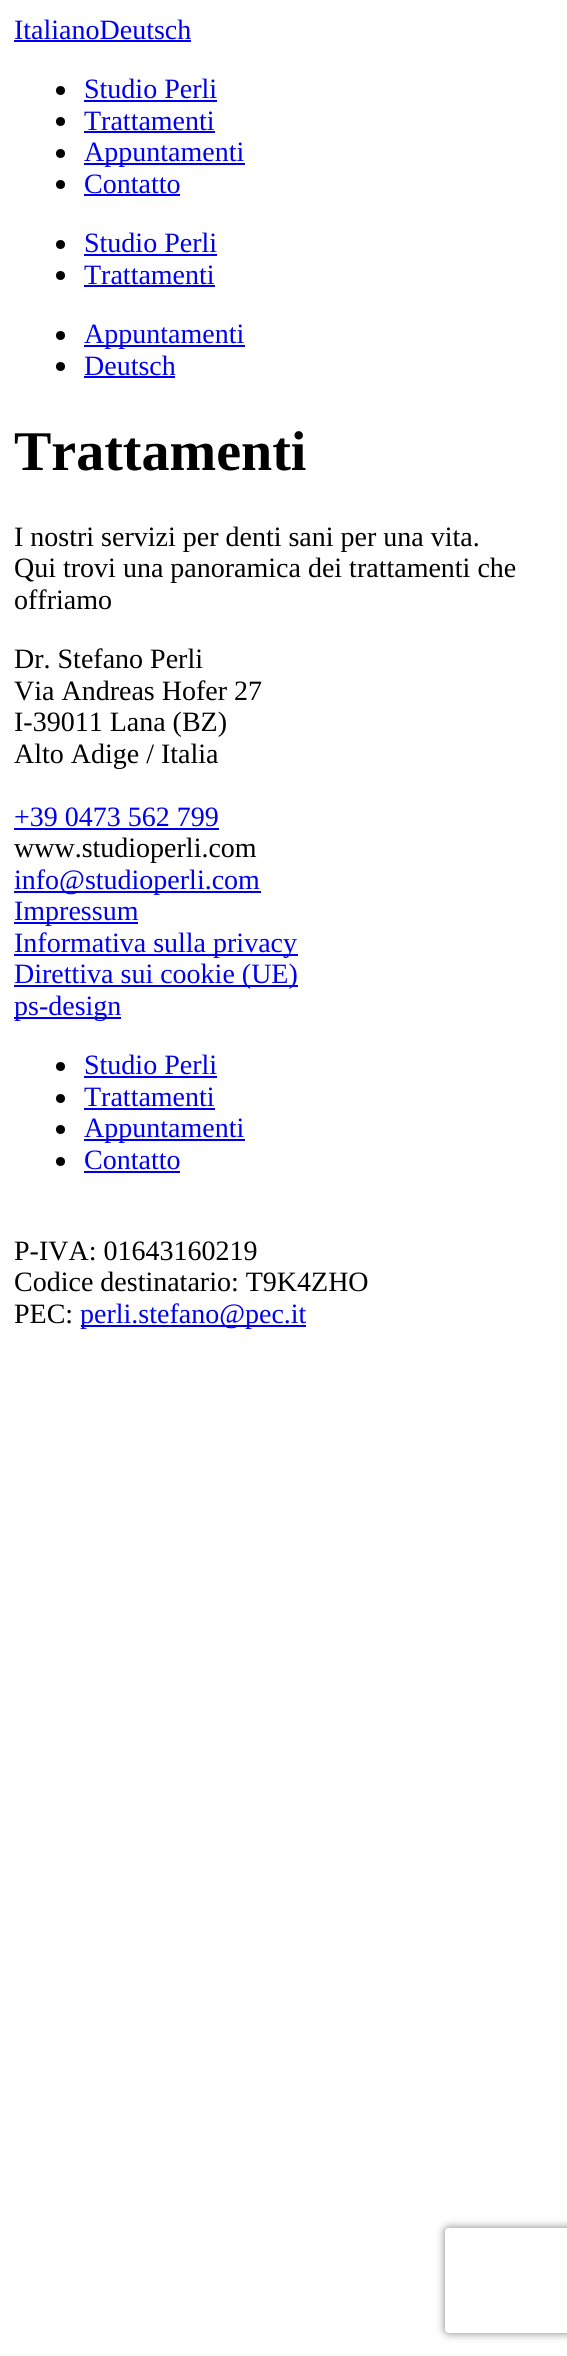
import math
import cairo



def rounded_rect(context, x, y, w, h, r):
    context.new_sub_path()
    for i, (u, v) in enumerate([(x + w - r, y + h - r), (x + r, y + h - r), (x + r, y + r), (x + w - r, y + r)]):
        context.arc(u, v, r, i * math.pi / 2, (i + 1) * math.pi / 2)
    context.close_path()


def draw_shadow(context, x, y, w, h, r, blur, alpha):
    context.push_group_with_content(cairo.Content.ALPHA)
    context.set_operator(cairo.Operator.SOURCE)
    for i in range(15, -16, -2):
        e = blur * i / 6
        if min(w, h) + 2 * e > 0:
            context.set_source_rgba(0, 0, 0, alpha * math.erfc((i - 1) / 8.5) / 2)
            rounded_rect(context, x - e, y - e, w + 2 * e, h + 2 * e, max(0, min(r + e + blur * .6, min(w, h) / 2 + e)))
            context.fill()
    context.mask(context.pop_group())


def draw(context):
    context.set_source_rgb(1, 1, 1)
    context.paint()
    context.set_source_rgb(0, 0, 238 / 255)
    context.rectangle(14, 40, 177, 2)
    context.fill()
    context.set_source_rgb(0, 0, 0)
    context.arc(60.5, 90.5, 4.5, 0, 2 * math.pi)
    context.fill()
    context.set_source_rgb(0, 0, 238 / 255)
    context.rectangle(84, 100, 133, 2)
    context.fill()
    context.set_source_rgb(0, 0, 0)
    context.arc(60.5, 121.5, 4.5, 0, 2 * math.pi)
    context.fill()
    context.set_source_rgb(0, 0, 238 / 255)
    context.rectangle(84, 131, 131, 2)
    context.fill()
    context.set_source_rgb(0, 0, 0)
    context.arc(60.5, 153.5, 4.5, 0, 2 * math.pi)
    context.fill()
    context.set_source_rgb(0, 0, 238 / 255)
    context.rectangle(84, 163, 161, 2)
    context.fill()
    context.set_source_rgb(0, 0, 0)
    context.arc(60.5, 184.5, 4.5, 0, 2 * math.pi)
    context.fill()
    context.set_source_rgb(0, 0, 238 / 255)
    context.rectangle(84, 194, 96, 2)
    context.fill()
    context.set_source_rgb(0, 0, 0)
    context.arc(60.5, 244.5, 4.5, 0, 2 * math.pi)
    context.fill()
    context.set_source_rgb(0, 0, 238 / 255)
    context.rectangle(84, 254, 133, 2)
    context.fill()
    context.set_source_rgb(0, 0, 0)
    context.arc(60.5, 275.5, 4.5, 0, 2 * math.pi)
    context.fill()
    context.set_source_rgb(0, 0, 238 / 255)
    context.rectangle(84, 285, 131, 2)
    context.fill()
    context.set_source_rgb(0, 0, 0)
    context.arc(60.5, 335.5, 4.5, 0, 2 * math.pi)
    context.fill()
    context.set_source_rgb(0, 0, 238 / 255)
    context.rectangle(84, 345, 161, 2)
    context.fill()
    context.set_source_rgb(0, 0, 0)
    context.arc(60.5, 366.5, 4.5, 0, 2 * math.pi)
    context.fill()
    context.set_source_rgb(0, 0, 238 / 255)
    context.rectangle(84, 376, 91, 2)
    context.fill()
    context.rectangle(14, 828, 205, 2)
    context.fill()
    context.rectangle(14, 891, 247, 2)
    context.fill()
    context.rectangle(14, 922, 124, 2)
    context.fill()
    context.rectangle(14, 954, 284, 2)
    context.fill()
    context.rectangle(14, 985, 284, 2)
    context.fill()
    context.rectangle(14, 1017, 107, 2)
    context.fill()
    context.set_source_rgb(0, 0, 0)
    context.arc(60.5, 1066.5, 4.5, 0, 2 * math.pi)
    context.fill()
    context.set_source_rgb(0, 0, 238 / 255)
    context.rectangle(84, 1076, 133, 2)
    context.fill()
    context.set_source_rgb(0, 0, 0)
    context.arc(60.5, 1098.5, 4.5, 0, 2 * math.pi)
    context.fill()
    context.set_source_rgb(0, 0, 238 / 255)
    context.rectangle(84, 1108, 131, 2)
    context.fill()
    context.set_source_rgb(0, 0, 0)
    context.arc(60.5, 1129.5, 4.5, 0, 2 * math.pi)
    context.fill()
    context.set_source_rgb(0, 0, 238 / 255)
    context.rectangle(84, 1139, 161, 2)
    context.fill()
    context.set_source_rgb(0, 0, 0)
    context.arc(60.5, 1161.5, 4.5, 0, 2 * math.pi)
    context.fill()
    context.set_source_rgb(0, 0, 238 / 255)
    context.rectangle(84, 1171, 96, 2)
    context.fill()
    context.rectangle(81, 1325, 225, 2)
    context.fill()
    context.save()
    context.set_fill_rule(cairo.FillRule.EVEN_ODD)
    context.new_path()
    context.move_to(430, 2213)
    context.line_to(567, 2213)
    context.line_to(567, 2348)
    context.line_to(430, 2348)
    context.close_path()
    context.move_to(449, 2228)
    context.line_to(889, 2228)
    context.curve_to(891, 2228, 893, 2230, 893, 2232)
    context.line_to(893, 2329)
    context.curve_to(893, 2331, 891, 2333, 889, 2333)
    context.line_to(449, 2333)
    context.curve_to(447, 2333, 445, 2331, 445, 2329)
    context.line_to(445, 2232)
    context.curve_to(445, 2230, 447, 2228, 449, 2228)
    context.close_path()
    context.clip()
    context.set_source_rgb(128 / 255, 128 / 255, 128 / 255)
    draw_shadow(context, 445, 2228, 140, 105, 4, 4.5, 1)
    context.restore()
    context.select_font_face("Liberation Serif")
    context.set_font_size(28)
    context.move_to(14, 39)
    context.show_text("ItalianoDeutsch")
    context.move_to(84, 98)
    context.show_text("Studio Perli")
    context.move_to(84, 130)
    context.show_text("Trattamenti")
    context.move_to(84, 161)
    context.show_text("Appuntamenti")
    context.move_to(84, 193)
    context.show_text("Contatto")
    context.move_to(84, 252)
    context.show_text("Studio Perli")
    context.move_to(84, 284)
    context.show_text("Trattamenti")
    context.move_to(84, 343)
    context.show_text("Appuntamenti")
    context.move_to(84, 375)
    context.show_text("Deutsch")
    context.select_font_face("Liberation Serif", cairo.FontSlant.NORMAL, cairo.FontWeight.BOLD)
    context.set_font_size(56)
    context.set_source_rgb(0, 0, 0)
    context.move_to(14, 470)
    context.show_text("Trattamenti")
    context.select_font_face("Liberation Serif")
    context.set_font_size(28)
    context.move_to(14, 546)
    context.show_text("I nostri servizi per denti sani per una vita.")
    context.move_to(14, 577)
    context.show_text("Qui trovi una panoramica dei trattamenti che")
    context.move_to(14, 609)
    context.show_text("offriamo")
    context.move_to(14, 668)
    context.show_text("Dr. Stefano Perli")
    context.move_to(14, 700)
    context.show_text("Via Andreas Hofer 27")
    context.move_to(14, 731)
    context.show_text("I-39011 Lana (BZ)")
    context.move_to(14, 763)
    context.show_text("Alto Adige / Italia")
    context.set_source_rgb(0, 0, 238 / 255)
    context.move_to(14, 826)
    context.show_text("+39 0473 562 799")
    context.set_source_rgb(0, 0, 0)
    context.move_to(14, 857)
    context.show_text("www.studioperli.com")
    context.set_source_rgb(0, 0, 238 / 255)
    context.move_to(14, 889)
    context.show_text("info@studioperli.com")
    context.move_to(14, 920)
    context.show_text("Impressum")
    context.move_to(14, 952)
    context.show_text("Informativa sulla privacy")
    context.move_to(14, 983)
    context.show_text("Direttiva sui cookie (UE)")
    context.move_to(14, 1015)
    context.show_text("ps-design")
    context.move_to(84, 1074)
    context.show_text("Studio Perli")
    context.move_to(84, 1106)
    context.show_text("Trattamenti")
    context.move_to(84, 1137)
    context.show_text("Appuntamenti")
    context.move_to(84, 1169)
    context.show_text("Contatto")
    context.set_source_rgb(0, 0, 0)
    context.move_to(14, 1260)
    context.show_text("P-IVA: 01643160219")
    context.move_to(14, 1291)
    context.show_text("Codice destinatario: T9K4ZHO")
    context.move_to(14, 1323)
    context.show_text("PEC:")
    context.set_source_rgb(0, 0, 238 / 255)
    context.move_to(80, 1323)
    context.show_text("perli.stefano@pec.it")


surface = cairo.ImageSurface(cairo.Format.RGB24, 567, 2356)
context = cairo.Context(surface)
options = cairo.FontOptions()
options.set_hint_metrics(cairo.HintMetrics.OFF)
options.set_hint_style(cairo.HintStyle.NONE)
context.set_font_options(options)
context.set_miter_limit(4)
draw(context)
surface.write_to_png("out.png")
